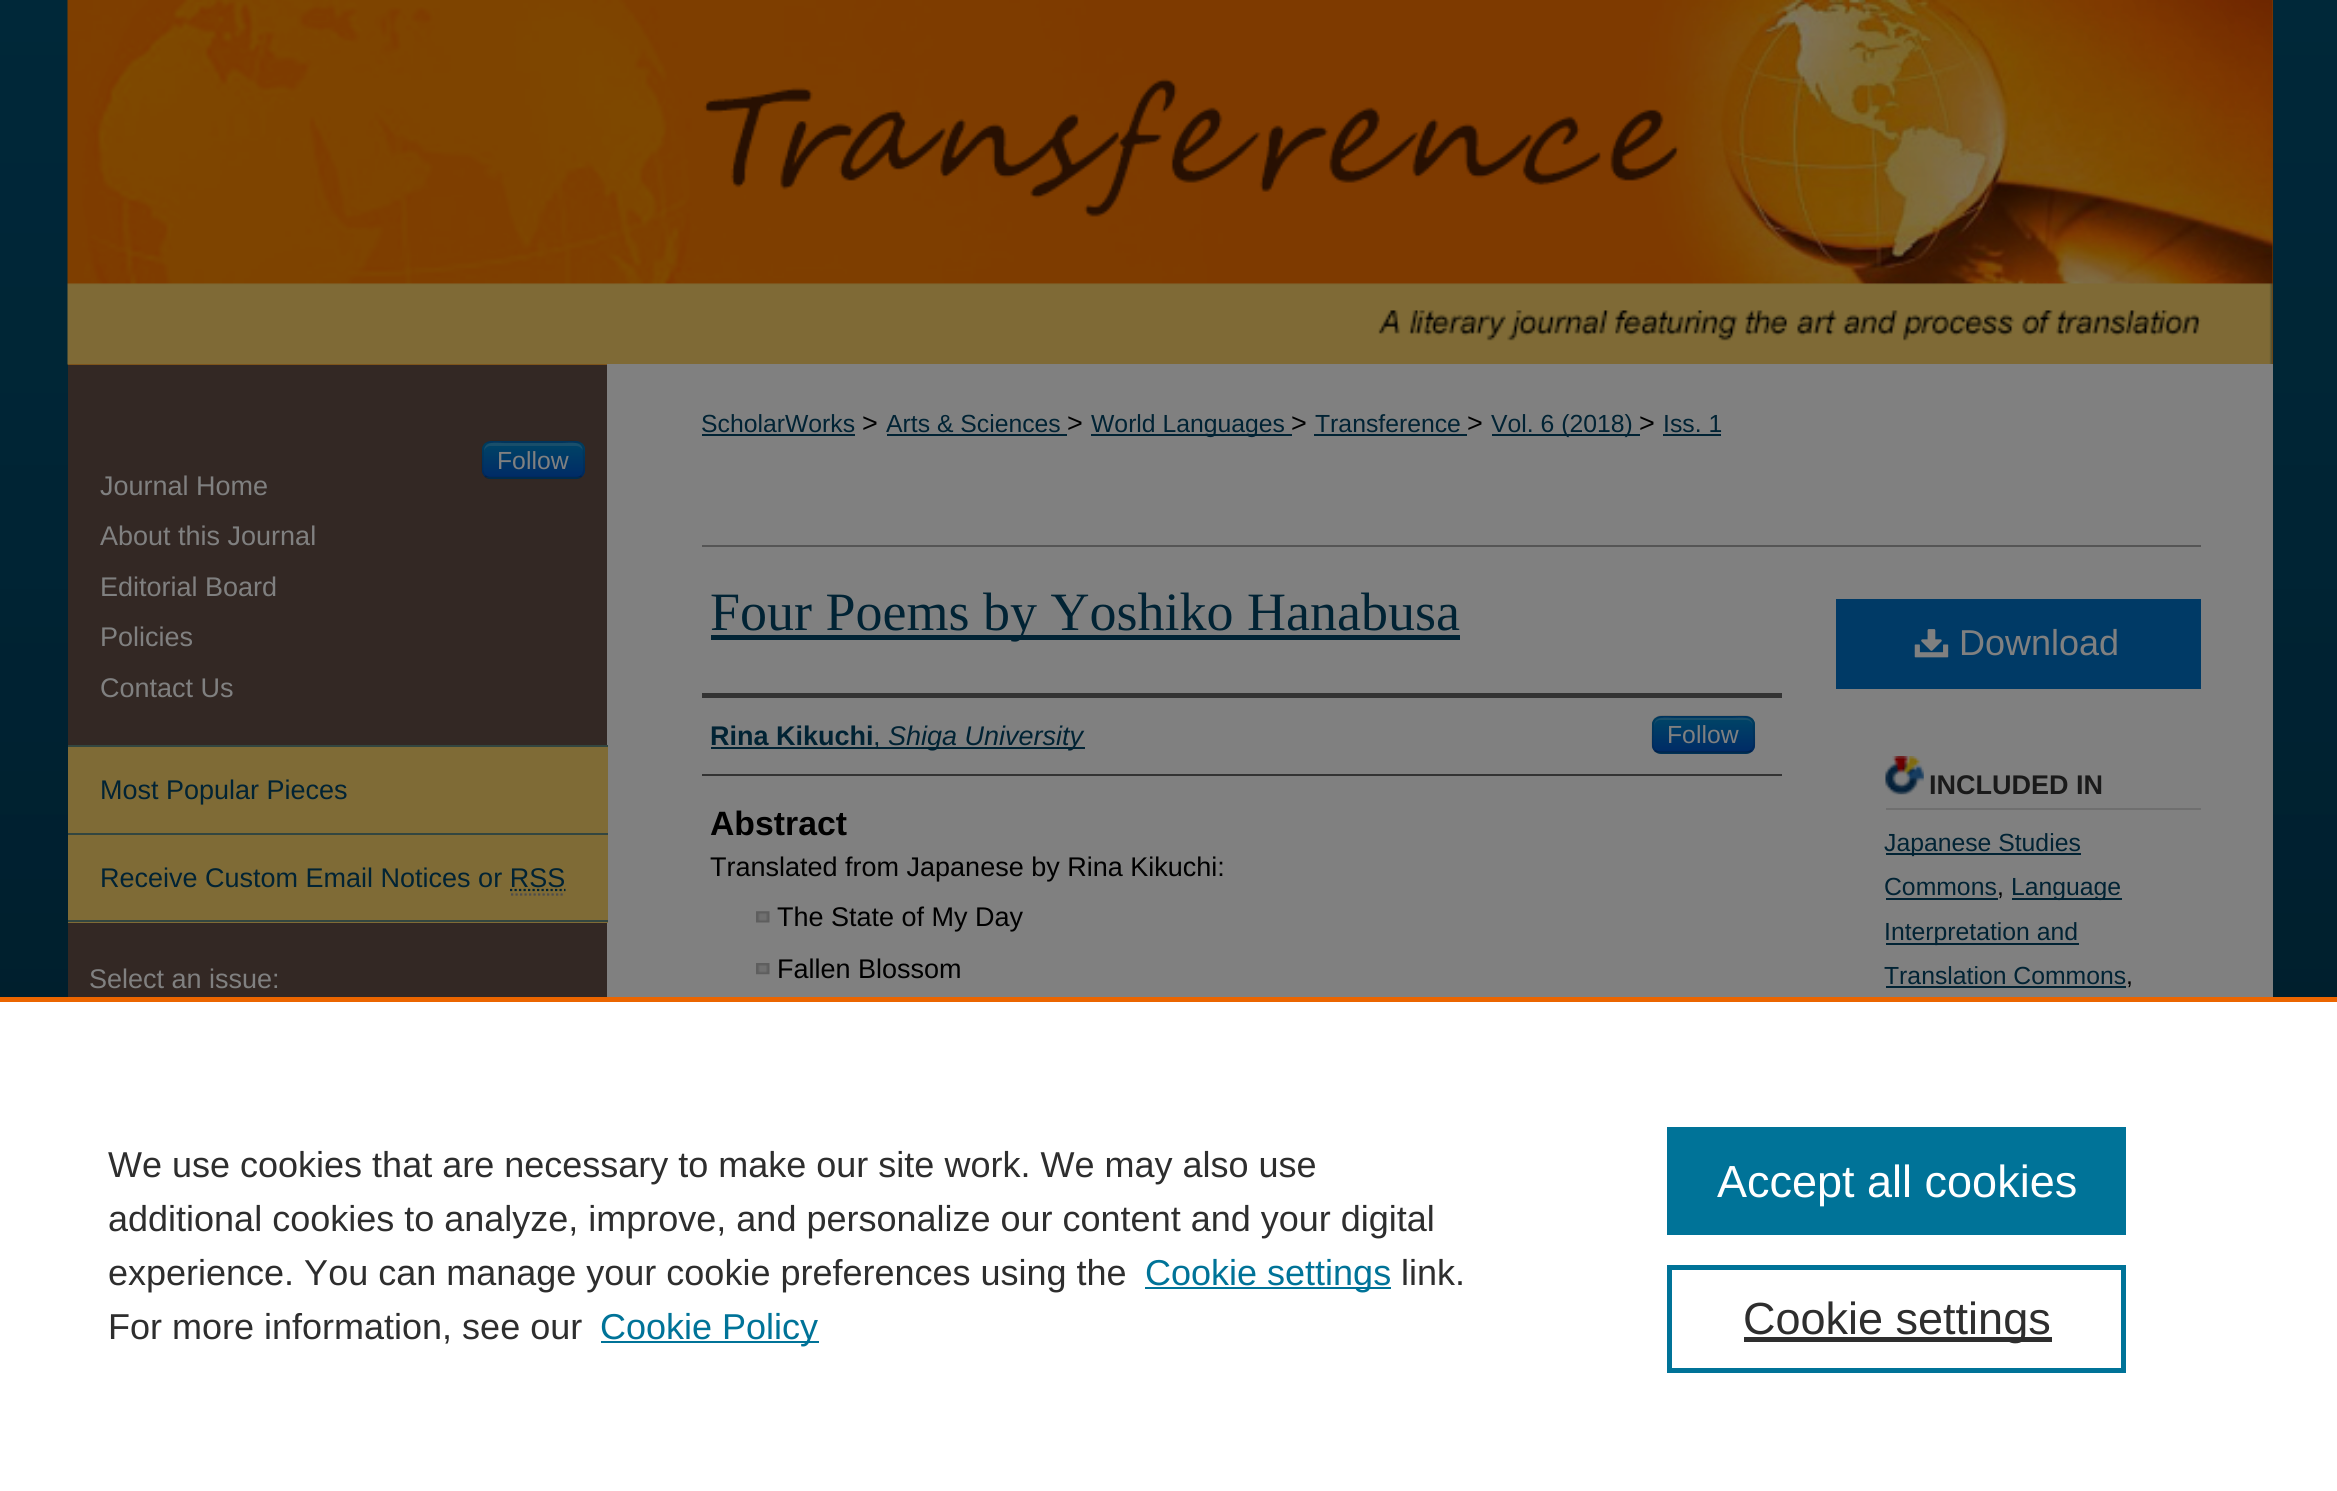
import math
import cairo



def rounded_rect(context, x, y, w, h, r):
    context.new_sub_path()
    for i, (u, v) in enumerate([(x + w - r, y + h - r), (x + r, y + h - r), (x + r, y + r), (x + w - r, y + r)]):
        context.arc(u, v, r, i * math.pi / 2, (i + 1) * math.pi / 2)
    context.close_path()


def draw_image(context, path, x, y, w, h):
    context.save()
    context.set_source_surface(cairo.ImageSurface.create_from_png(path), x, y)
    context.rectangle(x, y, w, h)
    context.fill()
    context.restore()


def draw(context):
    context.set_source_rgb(1, 1, 1)
    context.paint()
    draw_image(context, "images/1.png", 0, 0, 2337, 997)
    context.set_source_rgb(127 / 255, 62 / 255, 1 / 255)
    context.rectangle(68, 0, 2205, 365)
    context.fill()
    draw_image(context, "images/2.png", 67, 0, 2206, 365)
    context.set_source_rgb(51 / 255, 40 / 255, 36 / 255)
    context.rectangle(68, 365, 539, 632)
    context.fill()
    context.set_source_rgb(128 / 255, 128 / 255, 128 / 255)
    context.rectangle(607, 364, 1666, 633)
    context.fill()
    context.set_source_rgb(0, 58 / 255, 102 / 255)
    rounded_rect(context, 482, 441, 103, 38, 9)
    context.fill()
    context.save()
    rounded_rect(context, 482, 441, 103, 38, 9)
    context.clip()
    gradient = cairo.LinearGradient(533, 443, 533, 477)
    gradient.add_color_stop_rgba(0, 0, 68 / 255, 102 / 255, 1)
    gradient.add_color_stop_rgba(1, 0, 43 / 255, 102 / 255, 1)
    context.set_source(gradient)
    context.rectangle(482, 443, 103, 34)
    context.fill()
    context.restore()
    context.set_source_rgba(128 / 255, 128 / 255, 128 / 255, 0.2)
    context.new_path()
    context.move_to(490, 446)
    context.line_to(576, 446)
    context.curve_to(580, 446, 583, 449, 583, 452)
    context.curve_to(583, 440, 571, 443, 562, 443)
    context.line_to(505, 443)
    context.curve_to(496, 443, 484, 440, 484, 452)
    context.curve_to(484, 449, 487, 446, 490, 446)
    context.close_path()
    context.fill()
    context.new_path()
    context.move_to(581.5, 476)
    context.curve_to(580, 477.5, 578, 478, 576, 478)
    context.line_to(490.5, 478)
    context.curve_to(488.5, 478, 486.5, 477.5, 485, 476)
    context.set_source_rgba(0, 0, 0, 0.25)
    context.set_line_width(2.2)
    context.stroke()
    context.new_path()
    context.move_to(485, 476)
    context.curve_to(481, 472, 482.5, 465, 482.5, 460)
    context.line_to(483, 448.5)
    context.curve_to(484.5, 439, 499, 442, 505, 442)
    context.line_to(562, 442)
    context.curve_to(567.5, 442, 582, 439, 583.5, 448.5)
    context.line_to(584, 460)
    context.curve_to(584, 465, 585.5, 472, 581.5, 476)
    context.set_source_rgba(0, 0, 0, 0.1)
    context.stroke()
    context.set_source_rgb(51 / 255, 70 / 255, 64 / 255)
    context.rectangle(68, 745, 540, 2)
    context.fill()
    context.set_source_rgb(127 / 255, 107 / 255, 54 / 255)
    context.rectangle(68, 747, 540, 86)
    context.fill()
    context.set_source_rgb(51 / 255, 70 / 255, 64 / 255)
    context.rectangle(68, 833, 540, 2)
    context.fill()
    context.set_source_rgb(127 / 255, 107 / 255, 54 / 255)
    context.rectangle(68, 835, 540, 88)
    context.fill()
    context.set_source_rgb(51 / 255, 70 / 255, 64 / 255)
    context.rectangle(68, 920, 540, 2)
    context.fill()
    context.new_path()
    context.move_to(510, 890)
    context.line_to(565.5, 890)
    context.set_source_rgb(1 / 255, 35 / 255, 52 / 255)
    context.set_dash([2.25, 2.25])
    context.stroke()
    context.new_path()
    context.move_to(511, 894.5)
    context.line_to(565, 894.5)
    context.set_source_rgb(77 / 255, 77 / 255, 77 / 255)
    context.stroke()
    context.set_source_rgb(1 / 255, 35 / 255, 52 / 255)
    context.rectangle(702, 434, 153, 2)
    context.fill()
    context.rectangle(887, 434, 180, 2)
    context.fill()
    context.rectangle(1091, 434, 201, 2)
    context.fill()
    context.rectangle(1314, 434, 153, 2)
    context.fill()
    context.rectangle(1492, 434, 148, 2)
    context.fill()
    context.rectangle(1663, 434, 58, 2)
    context.fill()
    context.set_source_rgb(85 / 255, 85 / 255, 85 / 255)
    context.rectangle(702, 545, 1499, 2)
    context.fill()
    context.set_source_rgb(1 / 255, 35 / 255, 52 / 255)
    context.rectangle(711, 635, 749, 5)
    context.fill()
    context.set_source_rgb(51 / 255, 51 / 255, 51 / 255)
    context.rectangle(702, 693, 1080, 5)
    context.fill()
    context.rectangle(702, 774, 1080, 2)
    context.fill()
    context.set_source_rgb(1 / 255, 35 / 255, 52 / 255)
    context.rectangle(711, 747, 374, 2)
    context.fill()
    context.set_source_rgb(0, 58 / 255, 102 / 255)
    rounded_rect(context, 1652, 716, 103, 38, 9)
    context.fill()
    context.save()
    rounded_rect(context, 1652, 716, 103, 38, 9)
    context.clip()
    gradient = cairo.LinearGradient(1703, 718, 1703, 752)
    gradient.add_color_stop_rgba(0, 0, 68 / 255, 102 / 255, 1)
    gradient.add_color_stop_rgba(1, 0, 43 / 255, 102 / 255, 1)
    context.set_source(gradient)
    context.rectangle(1652, 718, 103, 34)
    context.fill()
    context.restore()
    context.set_source_rgba(128 / 255, 128 / 255, 128 / 255, 0.2)
    context.new_path()
    context.move_to(1660, 720)
    context.line_to(1746, 720)
    context.curve_to(1750, 720, 1753, 723, 1753, 727)
    context.curve_to(1753, 715, 1741, 718, 1732, 718)
    context.line_to(1675, 718)
    context.curve_to(1666, 718, 1654, 715, 1654, 727)
    context.curve_to(1654, 723, 1657, 720, 1660, 720)
    context.close_path()
    context.fill()
    context.new_path()
    context.move_to(1751.5, 750.5)
    context.curve_to(1750, 752, 1748, 752.5, 1746, 752.5)
    context.line_to(1660.5, 752.5)
    context.curve_to(1658.5, 752.5, 1656.5, 752, 1655, 750.5)
    context.set_source_rgba(0, 0, 0, 0.25)
    context.set_dash([])
    context.stroke()
    context.new_path()
    context.move_to(1655, 750.5)
    context.curve_to(1651, 746.5, 1652.5, 739.5, 1652.5, 734.5)
    context.line_to(1653, 723)
    context.curve_to(1654.5, 713.5, 1669, 716.5, 1675, 716.5)
    context.line_to(1732, 716.5)
    context.curve_to(1737.5, 716.5, 1752, 713.5, 1753.5, 723)
    context.line_to(1754, 734.5)
    context.curve_to(1754, 739.5, 1755.5, 746.5, 1751.5, 750.5)
    context.set_source_rgba(0, 0, 0, 0.1)
    context.stroke()
    draw_image(context, "images/3.png", 756, 911, 14, 12)
    draw_image(context, "images/4.png", 756, 963, 14, 12)
    context.set_source_rgb(0, 58 / 255, 102 / 255)
    context.rectangle(1836, 599, 365, 90)
    context.fill()
    draw_image(context, "images/5.png", 1914, 629, 35, 29)
    draw_image(context, "images/6.png", 1885, 756, 39, 39)
    context.set_source_rgb(111 / 255, 111 / 255, 111 / 255)
    context.rectangle(1886, 808, 315, 2)
    context.fill()
    context.set_source_rgb(1 / 255, 35 / 255, 52 / 255)
    context.rectangle(1886, 853, 195, 2)
    context.fill()
    context.rectangle(1886, 898, 112, 2)
    context.fill()
    context.rectangle(2012, 898, 110, 2)
    context.fill()
    context.rectangle(1886, 943, 193, 2)
    context.fill()
    context.rectangle(1886, 986, 240, 2)
    context.fill()
    context.set_source_rgb(235 / 255, 101 / 255, 0)
    context.rectangle(0, 997, 2337, 5)
    context.fill()
    context.set_source_rgb(0, 115 / 255, 152 / 255)
    context.rectangle(1145, 1287, 246, 2)
    context.fill()
    context.rectangle(601, 1341, 218, 2)
    context.fill()
    context.rectangle(1667, 1127, 459, 108)
    context.fill()
    context.rectangle(1669.5, 1267.5, 454, 103)
    context.set_line_width(5)
    context.stroke()
    context.set_source_rgb(46 / 255, 46 / 255, 46 / 255)
    context.rectangle(1744, 1337, 308, 5)
    context.fill()
    context.select_font_face("Liberation Sans")
    context.set_font_size(24.75)
    context.set_source_rgb(128 / 255, 128 / 255, 128 / 255)
    context.move_to(497, 469)
    context.show_text("Follow")
    context.set_font_size(27)
    context.move_to(100, 495)
    context.show_text("Journal Home")
    context.move_to(100, 545)
    context.show_text("About this Journal")
    context.move_to(100, 596)
    context.show_text("Editorial Board")
    context.move_to(100, 646)
    context.show_text("Policies")
    context.move_to(100, 697)
    context.show_text("Contact Us")
    context.set_source_rgb(1 / 255, 35 / 255, 52 / 255)
    context.move_to(100, 799)
    context.show_text("Most Popular Pieces")
    context.move_to(100, 887)
    context.show_text("Receive Custom Email Notices or RSS")
    context.set_source_rgb(128 / 255, 128 / 255, 128 / 255)
    context.move_to(89, 988)
    context.show_text("Select an issue:")
    context.set_font_size(24.75)
    context.set_source_rgb(1 / 255, 35 / 255, 52 / 255)
    context.move_to(701, 432)
    context.show_text("ScholarWorks")
    context.set_font_size(27)
    context.set_source_rgb(0, 0, 0)
    context.move_to(862, 432)
    context.show_text(">")
    context.set_font_size(24.75)
    context.set_source_rgb(1 / 255, 35 / 255, 52 / 255)
    context.move_to(886, 432)
    context.show_text("Arts & Sciences")
    context.set_font_size(27)
    context.set_source_rgb(0, 0, 0)
    context.move_to(1067, 432)
    context.show_text(">")
    context.set_font_size(24.75)
    context.set_source_rgb(1 / 255, 35 / 255, 52 / 255)
    context.move_to(1091, 432)
    context.show_text("World Languages")
    context.set_font_size(27)
    context.set_source_rgb(0, 0, 0)
    context.move_to(1291, 432)
    context.show_text(">")
    context.set_font_size(24.75)
    context.set_source_rgb(1 / 255, 35 / 255, 52 / 255)
    context.move_to(1315, 432)
    context.show_text("Transference")
    context.set_font_size(27)
    context.set_source_rgb(0, 0, 0)
    context.move_to(1467, 432)
    context.show_text(">")
    context.set_font_size(24.75)
    context.set_source_rgb(1 / 255, 35 / 255, 52 / 255)
    context.move_to(1491, 432)
    context.show_text("Vol. 6 (2018)")
    context.set_font_size(27)
    context.set_source_rgb(0, 0, 0)
    context.move_to(1639, 432)
    context.show_text(">")
    context.set_font_size(24.75)
    context.set_source_rgb(1 / 255, 35 / 255, 52 / 255)
    context.move_to(1663, 432)
    context.show_text("Iss. 1")
    context.select_font_face("Liberation Serif")
    context.set_font_size(54)
    context.move_to(710, 630)
    context.show_text("Four Poems by Yoshiko Hanabusa")
    context.select_font_face("Liberation Sans", cairo.FontSlant.NORMAL, cairo.FontWeight.BOLD)
    context.set_font_size(27)
    context.move_to(710, 745)
    context.show_text("Rina Kikuchi")
    context.select_font_face("Liberation Sans")
    context.move_to(873, 745)
    context.show_text(",")
    context.select_font_face("Liberation Sans", cairo.FontSlant.ITALIC)
    context.move_to(888, 745)
    context.show_text("Shiga University")
    context.select_font_face("Liberation Sans")
    context.set_font_size(24.75)
    context.set_source_rgb(128 / 255, 128 / 255, 128 / 255)
    context.move_to(1667, 743)
    context.show_text("Follow")
    context.select_font_face("Liberation Sans", cairo.FontSlant.NORMAL, cairo.FontWeight.BOLD)
    context.set_font_size(33.75)
    context.set_source_rgb(0, 0, 0)
    context.move_to(710, 835)
    context.show_text("Abstract")
    context.select_font_face("Liberation Sans")
    context.set_font_size(27)
    context.move_to(710, 876)
    context.show_text("Translated from Japanese by Rina Kikuchi:")
    context.move_to(777, 926)
    context.show_text("The State of My Day")
    context.move_to(777, 978)
    context.show_text("Fallen Blossom")
    context.set_font_size(36)
    context.set_source_rgb(128 / 255, 128 / 255, 128 / 255)
    context.move_to(1959, 655)
    context.show_text("Download")
    context.select_font_face("Liberation Sans", cairo.FontSlant.NORMAL, cairo.FontWeight.BOLD)
    context.set_font_size(27)
    context.set_source_rgb(26 / 255, 26 / 255, 26 / 255)
    context.move_to(1929, 794)
    context.show_text("INCLUDED IN")
    context.select_font_face("Liberation Sans")
    context.set_font_size(24.75)
    context.set_source_rgb(1 / 255, 35 / 255, 52 / 255)
    context.move_to(1884, 851)
    context.show_text("Japanese Studies")
    context.move_to(1884, 895)
    context.show_text("Commons")
    context.set_source_rgb(0, 0, 0)
    context.move_to(1997, 895)
    context.show_text(",")
    context.set_source_rgb(1 / 255, 35 / 255, 52 / 255)
    context.move_to(2011, 895)
    context.show_text("Language")
    context.move_to(1884, 940)
    context.show_text("Interpretation and")
    context.move_to(1884, 984)
    context.show_text("Translation Commons")
    context.set_source_rgb(0, 0, 0)
    context.move_to(2126, 984)
    context.show_text(",")
    context.set_font_size(36)
    context.set_source_rgb(46 / 255, 46 / 255, 46 / 255)
    context.move_to(108, 1177)
    context.show_text("We use cookies that are necessary to make our site work. We may also use")
    context.move_to(108, 1231)
    context.show_text("additional cookies to analyze, improve, and personalize our content and your digital")
    context.move_to(108, 1285)
    context.show_text("experience. You can manage your cookie preferences using the")
    context.set_source_rgb(0, 115 / 255, 152 / 255)
    context.move_to(1145, 1285)
    context.show_text("Cookie settings")
    context.set_source_rgb(46 / 255, 46 / 255, 46 / 255)
    context.move_to(1401, 1285)
    context.show_text("link.")
    context.move_to(108, 1339)
    context.show_text("For more information, see our")
    context.set_source_rgb(0, 115 / 255, 152 / 255)
    context.move_to(600, 1339)
    context.show_text("Cookie Policy")
    context.set_font_size(45)
    context.set_source_rgb(1, 1, 1)
    context.move_to(1717, 1197)
    context.show_text("Accept all cookies")
    context.set_source_rgb(46 / 255, 46 / 255, 46 / 255)
    context.move_to(1743, 1334)
    context.show_text("Cookie settings")


surface = cairo.ImageSurface(cairo.Format.RGB24, 2337, 1491)
context = cairo.Context(surface)
options = cairo.FontOptions()
options.set_hint_metrics(cairo.HintMetrics.OFF)
options.set_hint_style(cairo.HintStyle.NONE)
context.set_font_options(options)
context.set_miter_limit(4)
draw(context)
surface.write_to_png("out.png")
